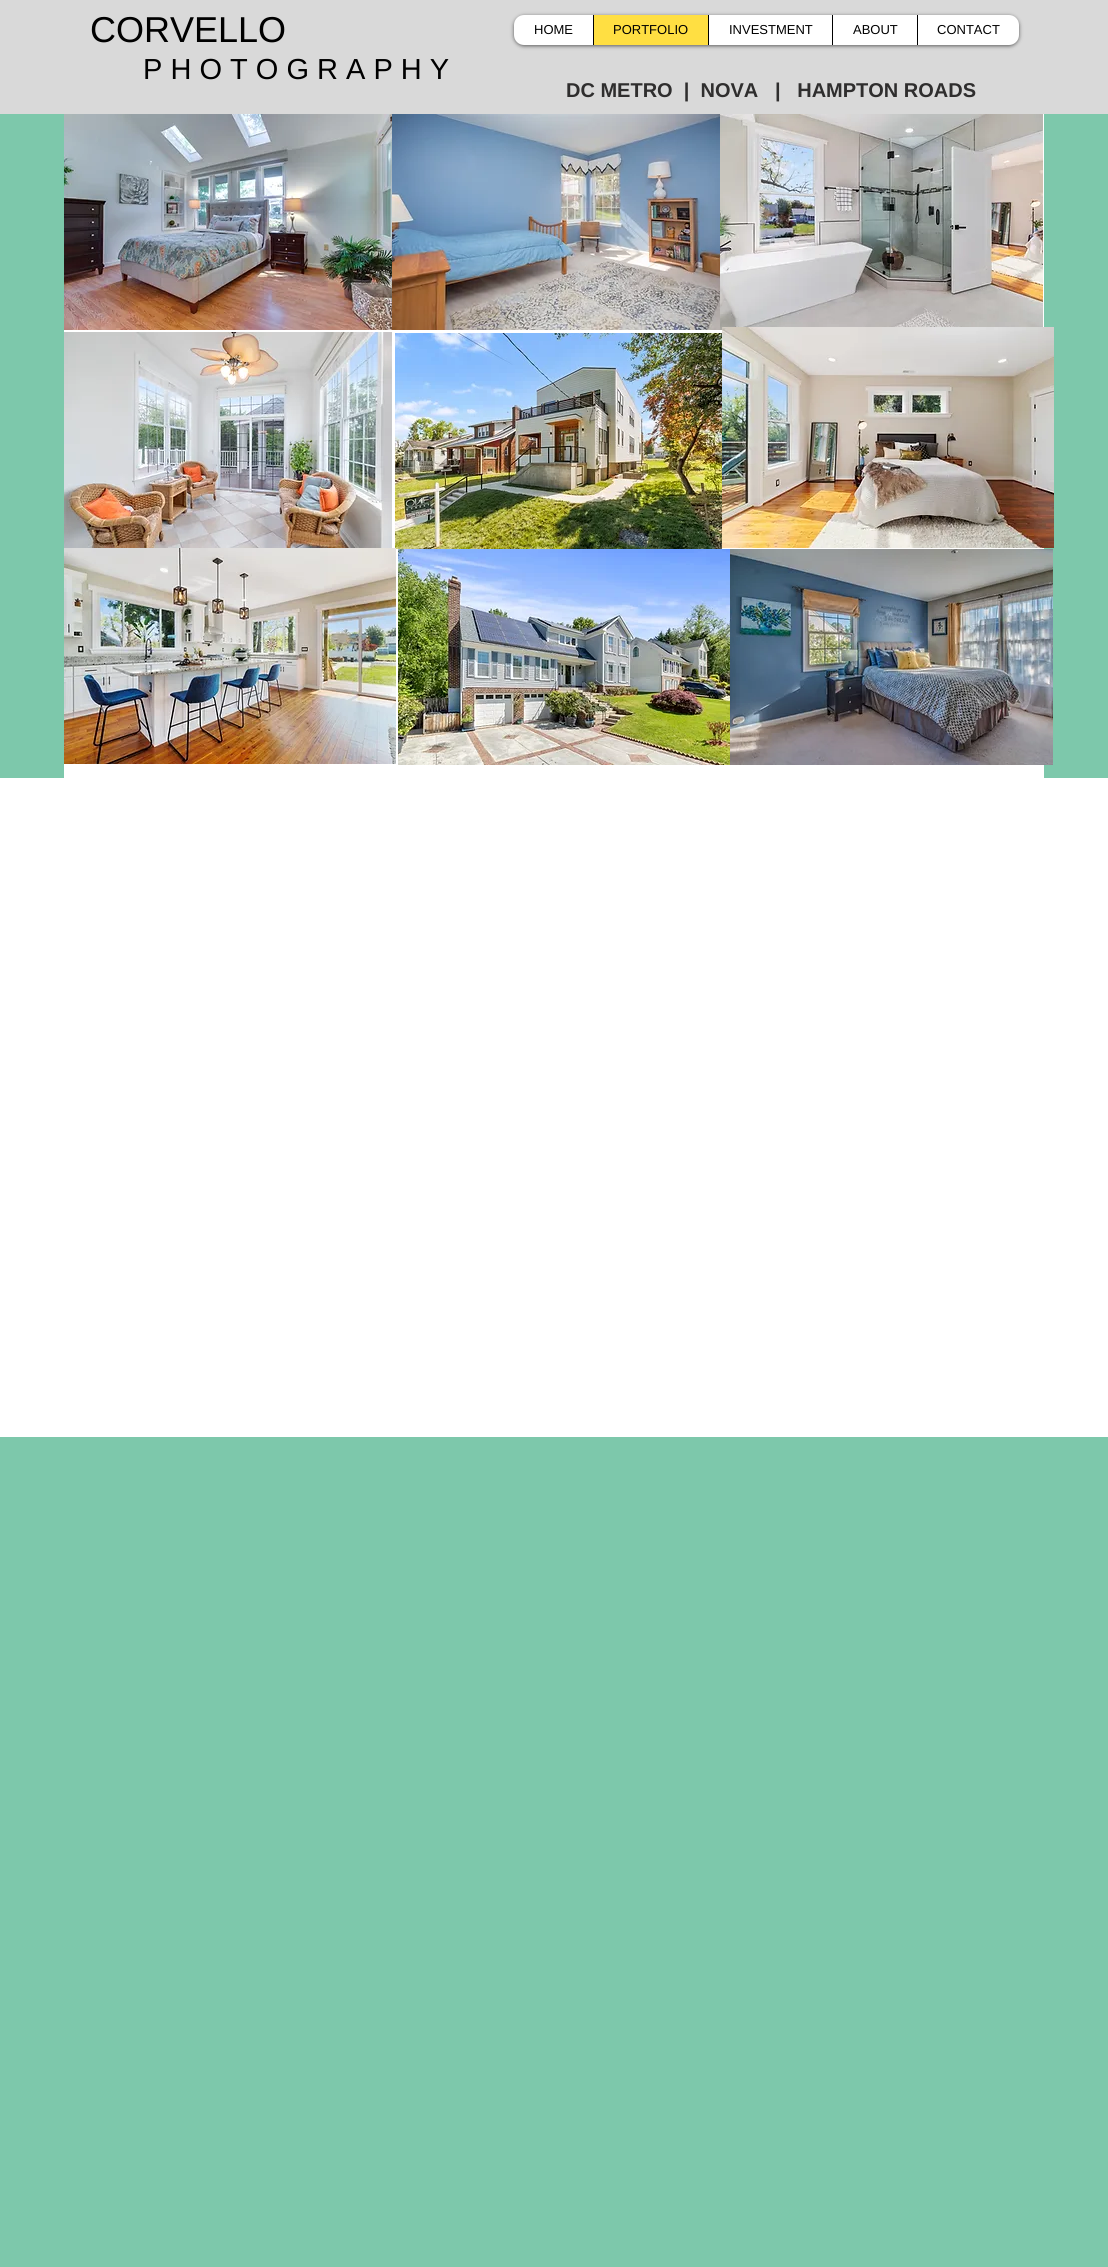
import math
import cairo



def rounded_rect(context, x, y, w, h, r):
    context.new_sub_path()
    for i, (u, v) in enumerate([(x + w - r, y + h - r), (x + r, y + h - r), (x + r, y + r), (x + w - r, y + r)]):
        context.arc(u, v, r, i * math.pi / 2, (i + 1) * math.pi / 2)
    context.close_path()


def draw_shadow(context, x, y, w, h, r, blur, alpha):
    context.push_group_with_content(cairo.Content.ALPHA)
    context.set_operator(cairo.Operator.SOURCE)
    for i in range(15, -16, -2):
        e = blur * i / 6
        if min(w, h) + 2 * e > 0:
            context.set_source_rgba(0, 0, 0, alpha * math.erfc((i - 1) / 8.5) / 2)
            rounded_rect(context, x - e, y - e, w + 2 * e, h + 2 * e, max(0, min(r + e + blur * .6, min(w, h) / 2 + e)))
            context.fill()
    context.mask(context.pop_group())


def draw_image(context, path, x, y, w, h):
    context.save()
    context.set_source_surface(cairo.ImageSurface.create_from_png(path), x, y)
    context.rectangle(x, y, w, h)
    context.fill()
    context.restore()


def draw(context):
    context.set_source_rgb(125 / 255, 200 / 255, 171 / 255)
    context.paint()
    context.set_source_rgb(217 / 255, 217 / 255, 217 / 255)
    context.rectangle(0, 0, 1108, 114)
    context.fill()
    context.set_source_rgb(0, 0, 0)
    draw_shadow(context, 514, 16, 505, 30, 10, 2, 0.6)
    context.set_source_rgb(1, 1, 1)
    rounded_rect(context, 514, 15, 505, 30, 10)
    context.fill()
    context.set_source_rgb(1, 223 / 255, 66 / 255)
    context.rectangle(594, 15, 114, 30)
    context.fill()
    context.set_source_rgb(0, 0, 0)
    context.rectangle(593, 15, 1, 30)
    context.fill()
    context.rectangle(708, 15, 1, 30)
    context.fill()
    context.rectangle(832, 15, 1, 30)
    context.fill()
    context.rectangle(917, 15, 1, 30)
    context.fill()
    context.set_source_rgb(1, 1, 1)
    context.rectangle(64, 114, 980, 664)
    context.fill()
    draw_image(context, "images/1.png", 64, 114, 328, 216)
    draw_image(context, "images/2.png", 392, 114, 328, 216)
    draw_image(context, "images/3.png", 720, 114, 323, 216)
    draw_image(context, "images/4.png", 64, 332, 328, 216)
    draw_image(context, "images/5.png", 395, 333, 327, 216)
    draw_image(context, "images/6.png", 722, 327, 332, 221)
    draw_image(context, "images/7.png", 64, 548, 332, 216)
    draw_image(context, "images/8.png", 398, 549, 332, 216)
    draw_image(context, "images/9.png", 730, 549, 323, 216)
    context.rectangle(0, 778, 1108, 659)
    context.fill()
    context.select_font_face("Liberation Sans")
    context.set_font_size(36)
    context.set_source_rgb(0, 0, 0)
    context.move_to(90, 42)
    context.show_text("CORVELLO")
    context.set_font_size(13)
    context.move_to(534, 34)
    context.show_text("HOME")
    context.move_to(613, 34)
    context.show_text("PORTFOLIO")
    context.move_to(729, 34)
    context.show_text("INVESTMENT")
    context.move_to(853, 34)
    context.show_text("ABOUT")
    context.move_to(937, 34)
    context.show_text("CONTACT")
    context.set_font_size(29)
    context.move_to(143, 79)
    context.show_text("P H O T O G R A P H Y")
    context.select_font_face("Liberation Sans", cairo.FontSlant.NORMAL, cairo.FontWeight.BOLD)
    context.set_font_size(20)
    context.set_source_rgb(47 / 255, 46 / 255, 46 / 255)
    context.move_to(566, 97)
    context.show_text("DC METRO  |  NOVA   |   HAMPTON ROADS")


surface = cairo.ImageSurface(cairo.Format.RGB24, 1108, 2267)
context = cairo.Context(surface)
options = cairo.FontOptions()
options.set_hint_metrics(cairo.HintMetrics.OFF)
options.set_hint_style(cairo.HintStyle.NONE)
context.set_font_options(options)
context.set_miter_limit(4)
draw(context)
surface.write_to_png("out.png")
